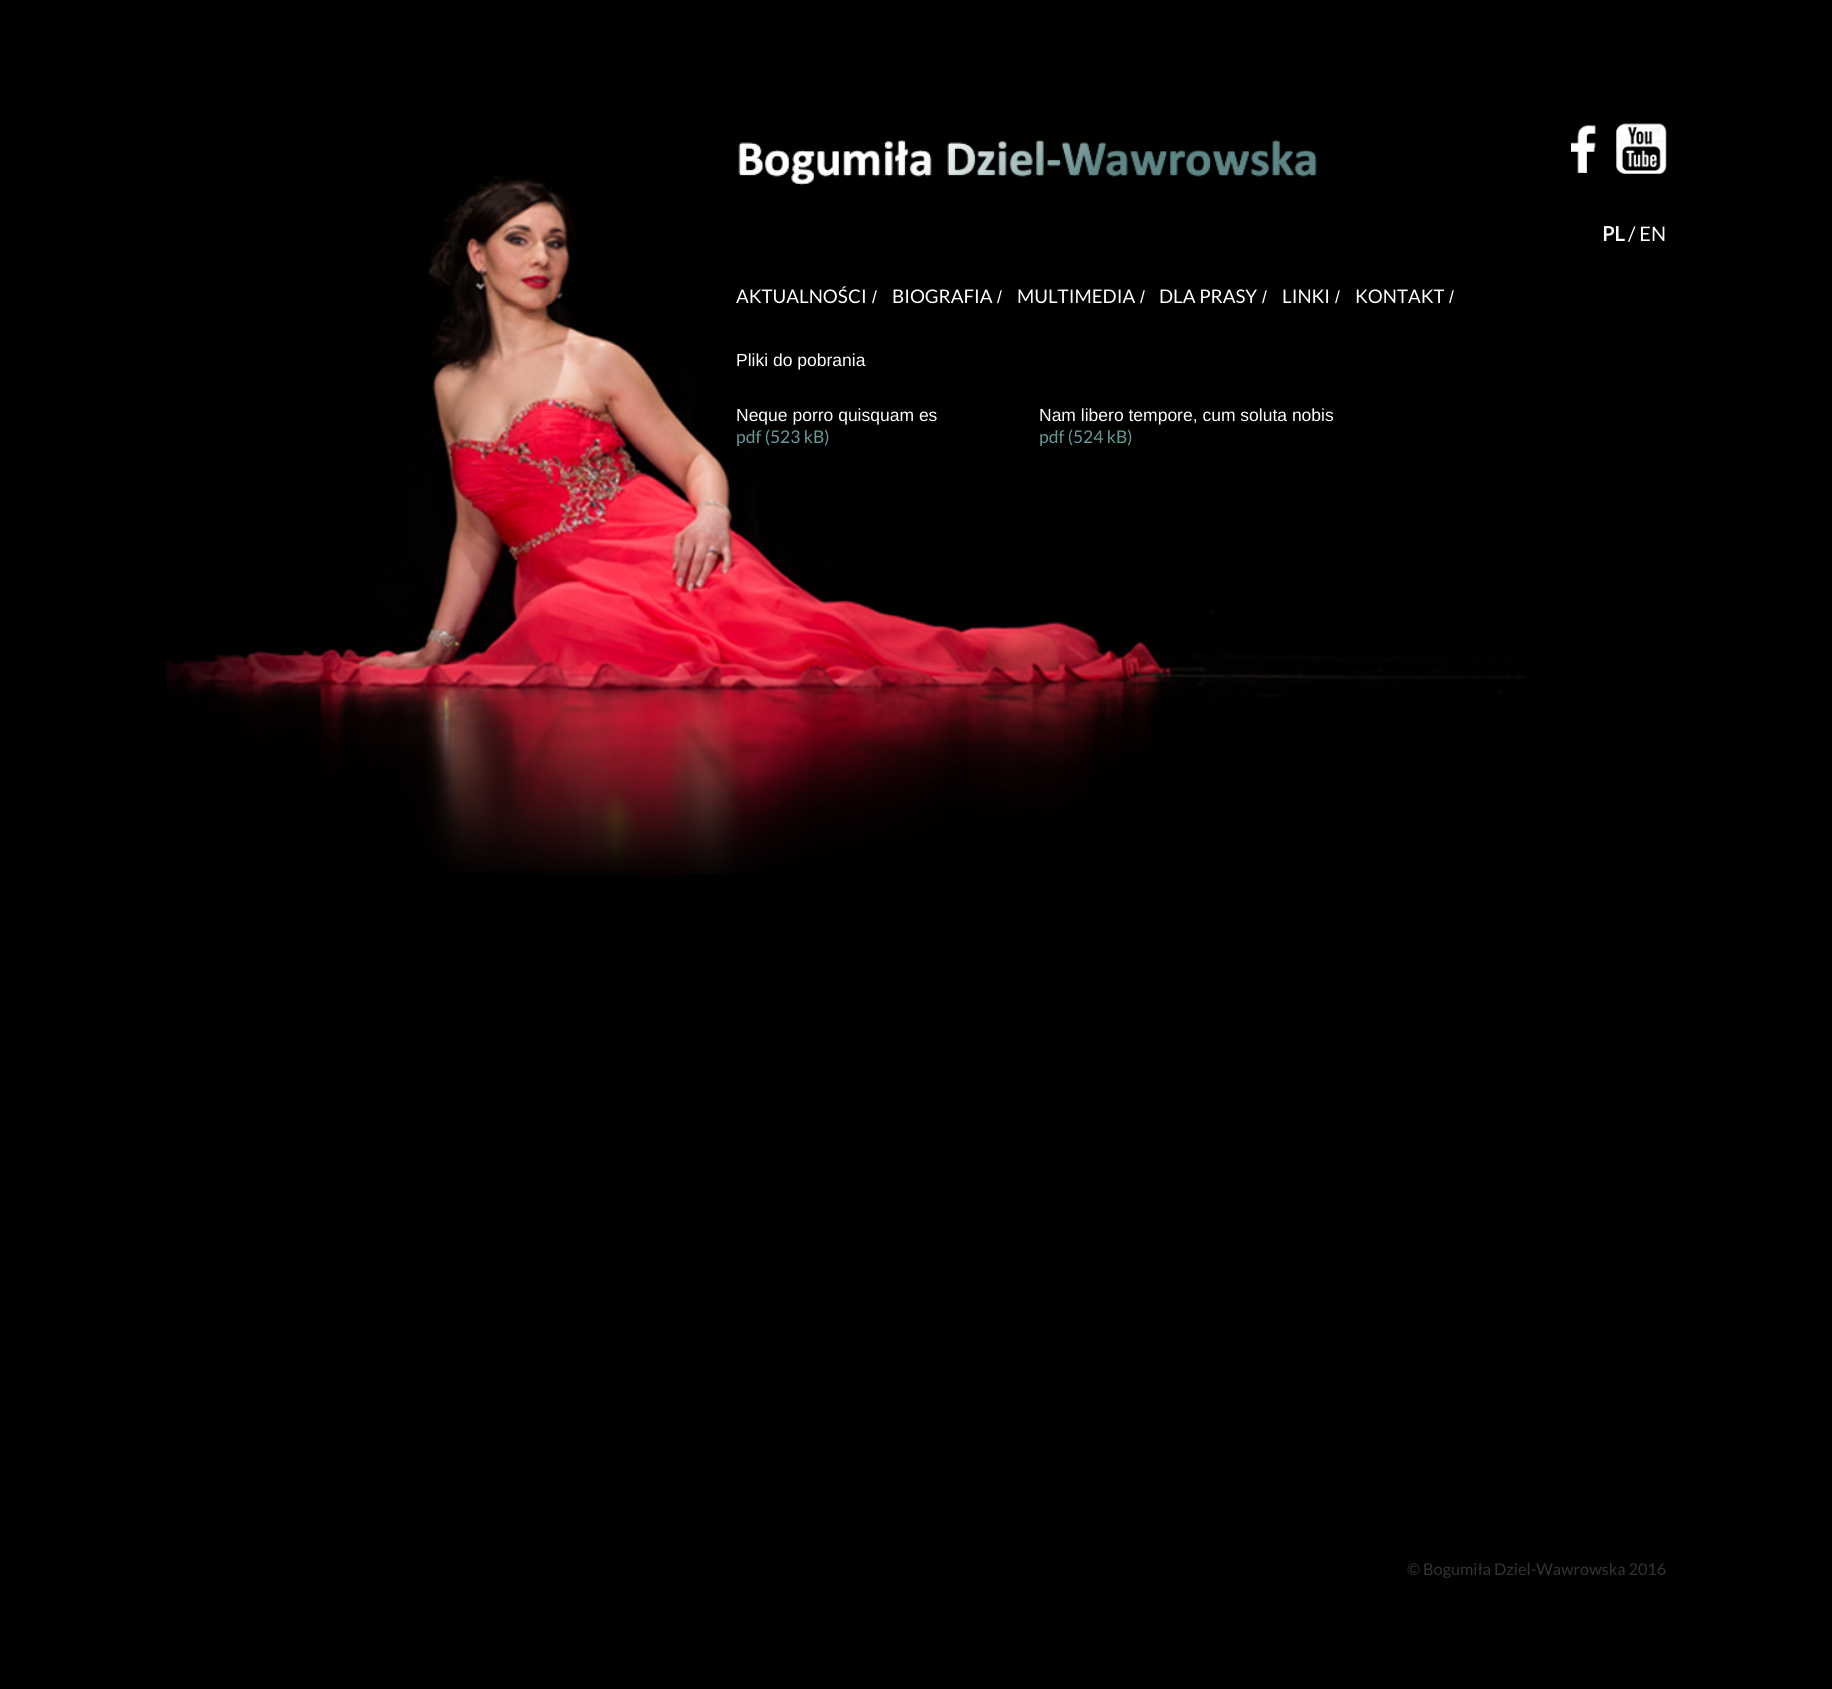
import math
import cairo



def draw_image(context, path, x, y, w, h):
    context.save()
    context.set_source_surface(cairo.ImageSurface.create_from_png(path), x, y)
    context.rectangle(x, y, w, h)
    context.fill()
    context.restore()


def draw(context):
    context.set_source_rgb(0, 0, 0)
    context.paint()
    draw_image(context, "images/1.png", 166, 174, 1360, 701)
    draw_image(context, "images/2.png", 738, 140, 579, 46)
    draw_image(context, "images/3.png", 1571, 125, 25, 48)
    draw_image(context, "images/4.png", 1616, 123, 51, 51)
    context.select_font_face("Lato", cairo.FontSlant.NORMAL, cairo.FontWeight.BOLD)
    context.set_font_size(20)
    context.set_source_rgb(1, 1, 1)
    context.move_to(1602, 241)
    context.show_text("PL")
    context.select_font_face("Lato")
    context.move_to(1628, 241)
    context.show_text("/ EN")
    context.set_font_size(18.75)
    context.move_to(736, 303)
    context.show_text("AKTUALNOŚCI")
    context.select_font_face("Liberation Sans")
    context.set_font_size(17.5)
    context.move_to(872, 303)
    context.show_text("/")
    context.select_font_face("Lato")
    context.set_font_size(18.75)
    context.move_to(892, 303)
    context.show_text("BIOGRAFIA")
    context.select_font_face("Liberation Sans")
    context.set_font_size(17.5)
    context.move_to(997, 303)
    context.show_text("/")
    context.select_font_face("Lato")
    context.set_font_size(18.75)
    context.move_to(1017, 303)
    context.show_text("MULTIMEDIA")
    context.select_font_face("Liberation Sans")
    context.set_font_size(17.5)
    context.move_to(1140, 303)
    context.show_text("/")
    context.select_font_face("Lato")
    context.set_font_size(18.75)
    context.move_to(1159, 303)
    context.show_text("DLA PRASY")
    context.select_font_face("Liberation Sans")
    context.set_font_size(17.5)
    context.move_to(1262, 303)
    context.show_text("/")
    context.select_font_face("Lato")
    context.set_font_size(18.75)
    context.move_to(1282, 303)
    context.show_text("LINKI")
    context.select_font_face("Liberation Sans")
    context.set_font_size(17.5)
    context.move_to(1335, 303)
    context.show_text("/")
    context.select_font_face("Lato")
    context.set_font_size(18.75)
    context.move_to(1355, 303)
    context.show_text("KONTAKT")
    context.select_font_face("Liberation Sans")
    context.set_font_size(17.5)
    context.move_to(1449, 303)
    context.show_text("/")
    context.move_to(736, 366)
    context.show_text("Pliki do pobrania")
    context.move_to(736, 421)
    context.show_text("Neque porro quisquam es")
    context.select_font_face("Lato")
    context.set_source_rgb(102 / 255, 154 / 255, 152 / 255)
    context.move_to(736, 443)
    context.show_text("pdf (523 kB)")
    context.select_font_face("Liberation Sans")
    context.set_source_rgb(1, 1, 1)
    context.move_to(1039, 421)
    context.show_text("Nam libero tempore, cum soluta nobis")
    context.select_font_face("Lato")
    context.set_source_rgb(102 / 255, 154 / 255, 152 / 255)
    context.move_to(1039, 443)
    context.show_text("pdf (524 kB)")
    context.set_font_size(16.25)
    context.set_source_rgb(51 / 255, 51 / 255, 51 / 255)
    context.move_to(1407, 1575)
    context.show_text("© Bogumiła Dziel-Wawrowska 2016")


surface = cairo.ImageSurface(cairo.Format.RGB24, 1832, 1689)
context = cairo.Context(surface)
options = cairo.FontOptions()
options.set_hint_metrics(cairo.HintMetrics.OFF)
options.set_hint_style(cairo.HintStyle.NONE)
context.set_font_options(options)
context.set_miter_limit(4)
draw(context)
surface.write_to_png("out.png")
